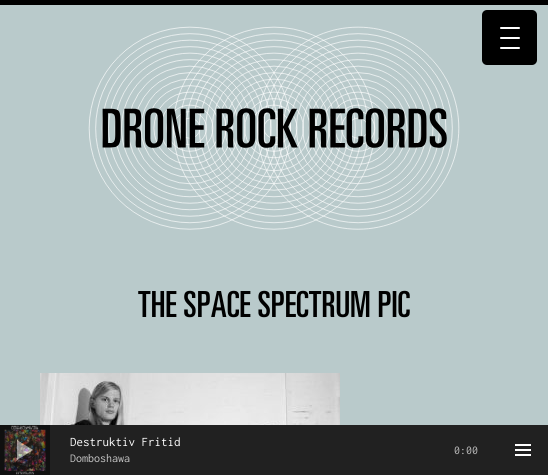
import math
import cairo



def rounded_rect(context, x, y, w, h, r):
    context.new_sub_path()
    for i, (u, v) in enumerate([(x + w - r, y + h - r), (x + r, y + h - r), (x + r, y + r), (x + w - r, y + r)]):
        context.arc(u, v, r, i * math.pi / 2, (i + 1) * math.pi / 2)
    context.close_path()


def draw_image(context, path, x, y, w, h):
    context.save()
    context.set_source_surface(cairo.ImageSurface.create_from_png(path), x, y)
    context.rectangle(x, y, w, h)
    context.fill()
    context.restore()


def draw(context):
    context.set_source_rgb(185 / 255, 202 / 255, 203 / 255)
    context.paint()
    context.set_source_rgb(0, 0, 0)
    rounded_rect(context, 482, 10, 55, 55, 5)
    context.fill()
    context.set_source_rgb(1, 1, 1)
    rounded_rect(context, 500, 37, 20, 2, 1)
    context.fill()
    rounded_rect(context, 500, 27, 20, 2, 1)
    context.fill()
    rounded_rect(context, 500, 47, 20, 2, 1)
    context.fill()
    context.set_source_rgb(0, 0, 0)
    context.rectangle(0, 0, 548, 5)
    context.fill()
    draw_image(context, "images/1.png", 88, 26, 372, 204)
    draw_image(context, "images/2.png", 40, 373, 300, 52)
    context.set_source_rgb(33 / 255, 33 / 255, 33 / 255)
    context.rectangle(0, 425, 548, 50)
    context.fill()
    context.set_source_rgb(1, 1, 1)
    context.new_path()
    context.move_to(33, 450)
    context.line_to(17, 460)
    context.line_to(17, 440)
    context.close_path()
    context.fill()
    draw_image(context, "images/3.png", 0, 425, 50, 50)
    draw_image(context, "images/4.png", 515, 444, 16, 12)
    context.select_font_face("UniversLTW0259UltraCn")
    context.set_font_size(36)
    context.set_source_rgb(0, 0, 0)
    context.move_to(138, 317)
    context.show_text("THE SPACE SPECTRUM PIC")
    context.select_font_face("Inconsolata")
    context.set_font_size(13)
    context.set_source_rgb(1, 1, 1)
    context.move_to(70, 446)
    context.show_text("Destruktiv Fritid")
    context.set_font_size(12)
    context.set_source_rgb(200 / 255, 200 / 255, 200 / 255)
    context.move_to(70, 462)
    context.show_text("Domboshawa")
    context.set_source_rgb(188 / 255, 188 / 255, 188 / 255)
    context.move_to(454, 454)
    context.show_text("0:00")


surface = cairo.ImageSurface(cairo.Format.RGB24, 548, 475)
context = cairo.Context(surface)
options = cairo.FontOptions()
options.set_hint_metrics(cairo.HintMetrics.OFF)
options.set_hint_style(cairo.HintStyle.NONE)
context.set_font_options(options)
context.set_miter_limit(4)
draw(context)
surface.write_to_png("out.png")
